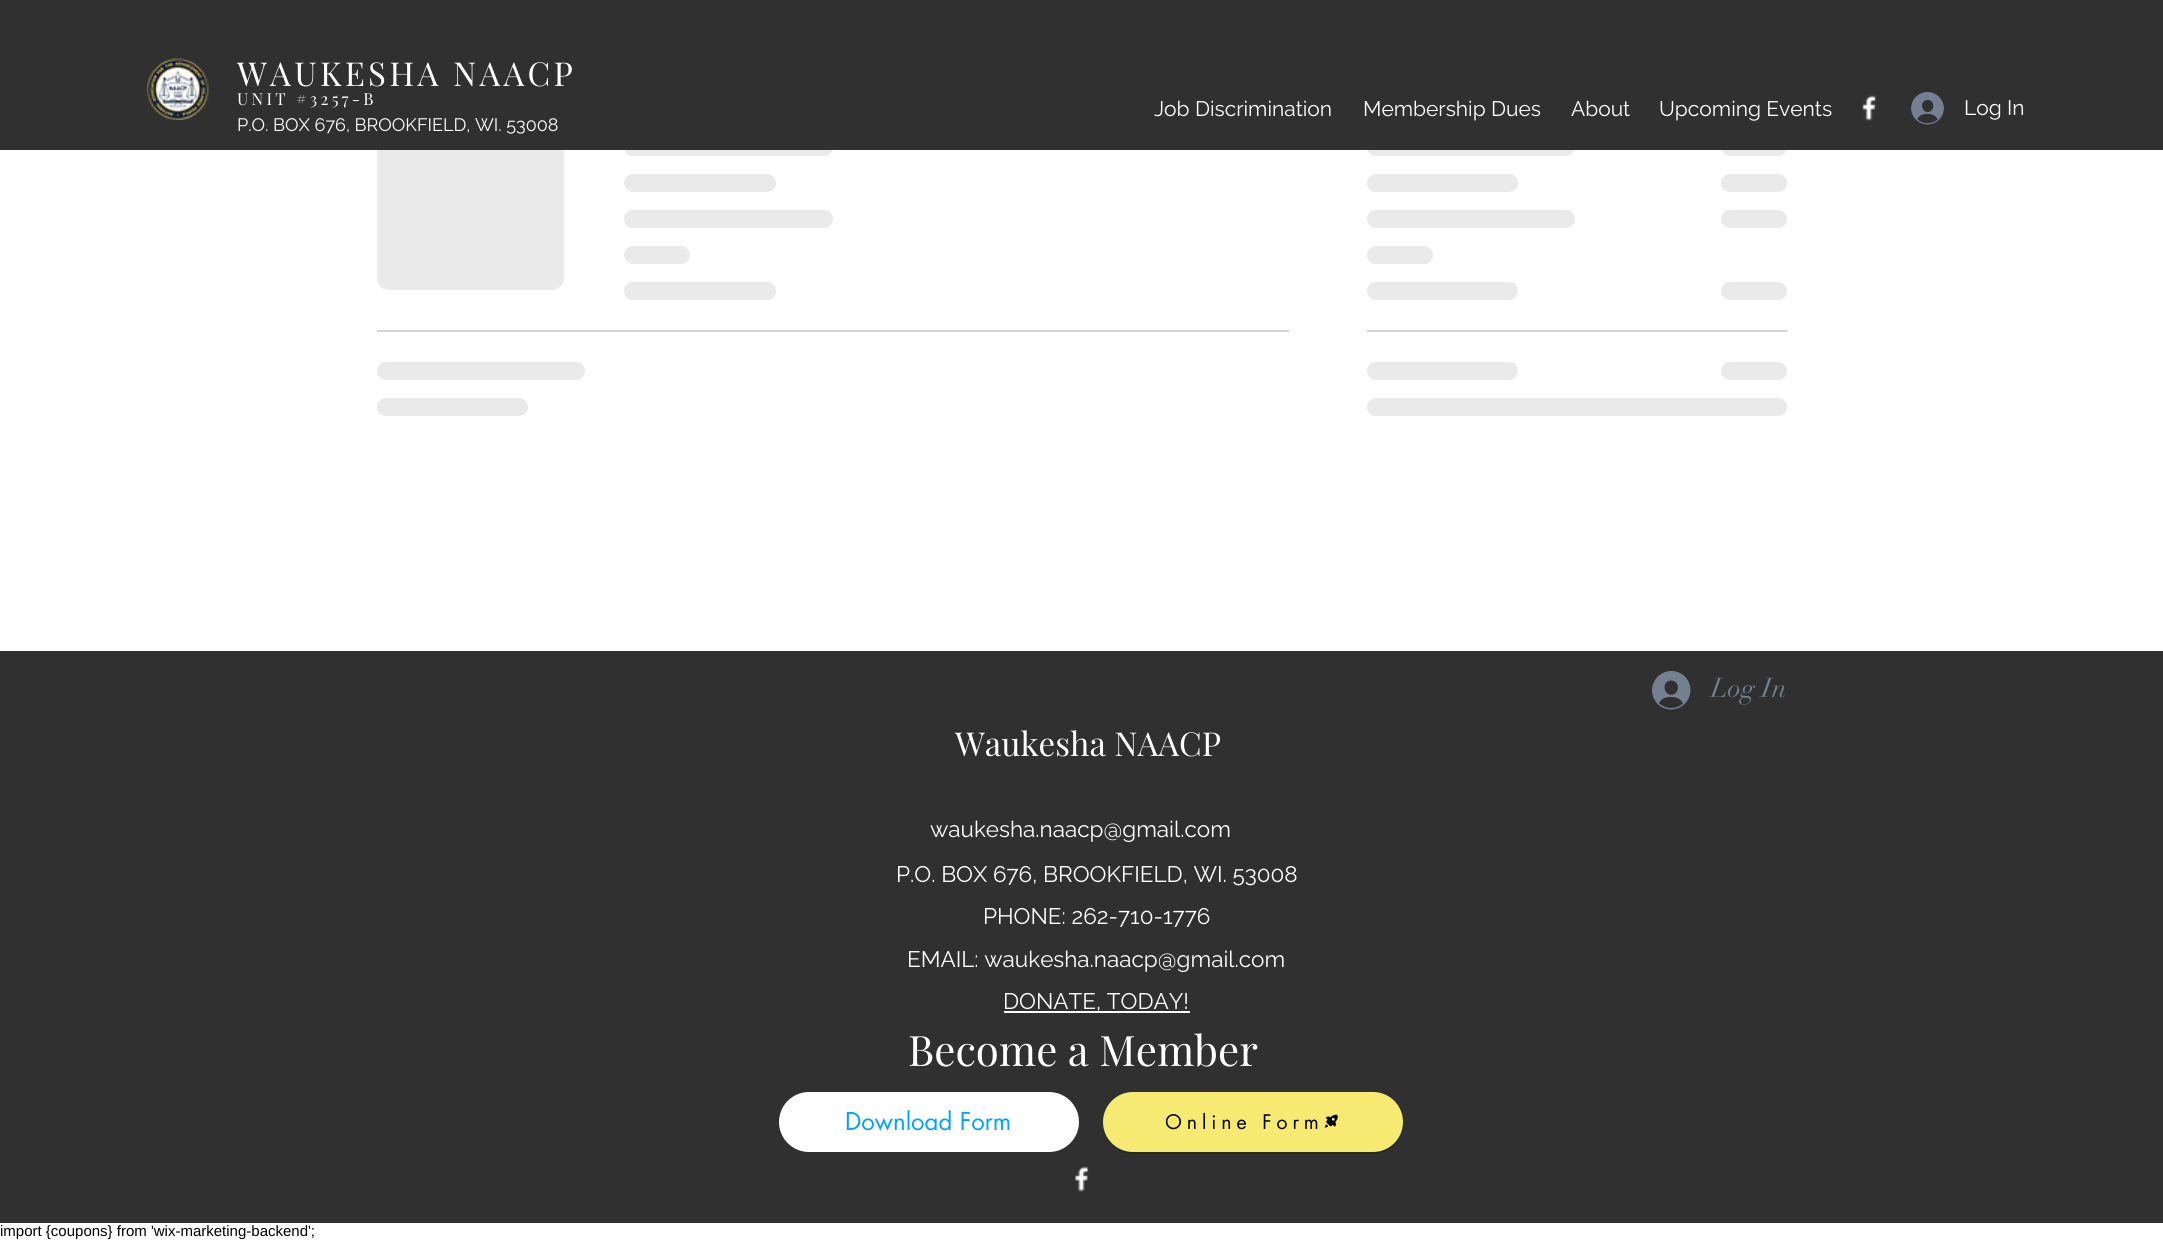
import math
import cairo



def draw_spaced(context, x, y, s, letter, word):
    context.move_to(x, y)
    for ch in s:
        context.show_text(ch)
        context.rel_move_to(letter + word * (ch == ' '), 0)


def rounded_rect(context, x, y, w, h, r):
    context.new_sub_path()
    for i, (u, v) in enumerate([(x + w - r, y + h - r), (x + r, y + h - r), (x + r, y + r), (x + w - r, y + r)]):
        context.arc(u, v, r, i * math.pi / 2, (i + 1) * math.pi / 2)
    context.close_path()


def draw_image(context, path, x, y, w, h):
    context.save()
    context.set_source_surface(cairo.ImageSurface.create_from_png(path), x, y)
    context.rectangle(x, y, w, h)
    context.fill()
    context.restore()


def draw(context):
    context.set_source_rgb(1, 1, 1)
    context.paint()
    gradient = cairo.LinearGradient(377, 196, 1127, 196)
    gradient.add_color_stop_rgba(0.25, 234 / 255, 234 / 255, 234 / 255, 1)
    gradient.add_color_stop_rgba(0.37, 214 / 255, 214 / 255, 214 / 255, 1)
    gradient.add_color_stop_rgba(0.63, 234 / 255, 234 / 255, 234 / 255, 1)
    context.set_source(gradient)
    rounded_rect(context, 377, 102, 187, 188, 12)
    context.fill()
    gradient = cairo.LinearGradient(624, 147, 1458, 147)
    gradient.add_color_stop_rgba(0.25, 234 / 255, 234 / 255, 234 / 255, 1)
    gradient.add_color_stop_rgba(0.37, 214 / 255, 214 / 255, 214 / 255, 1)
    gradient.add_color_stop_rgba(0.63, 234 / 255, 234 / 255, 234 / 255, 1)
    context.set_source(gradient)
    rounded_rect(context, 624, 138, 209, 18, 9)
    context.fill()
    gradient = cairo.LinearGradient(1367, 147, 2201, 147)
    gradient.add_color_stop_rgba(0.25, 234 / 255, 234 / 255, 234 / 255, 1)
    gradient.add_color_stop_rgba(0.37, 214 / 255, 214 / 255, 214 / 255, 1)
    gradient.add_color_stop_rgba(0.63, 234 / 255, 234 / 255, 234 / 255, 1)
    context.set_source(gradient)
    rounded_rect(context, 1367, 138, 208, 18, 9)
    context.fill()
    gradient = cairo.LinearGradient(1721, 147, 1985, 147)
    gradient.add_color_stop_rgba(0.25, 234 / 255, 234 / 255, 234 / 255, 1)
    gradient.add_color_stop_rgba(0.37, 214 / 255, 214 / 255, 214 / 255, 1)
    gradient.add_color_stop_rgba(0.63, 234 / 255, 234 / 255, 234 / 255, 1)
    context.set_source(gradient)
    rounded_rect(context, 1721, 138, 66, 18, 9)
    context.fill()
    context.set_source_rgb(48 / 255, 48 / 255, 48 / 255)
    context.rectangle(0, 0, 2163, 150)
    context.fill()
    draw_image(context, "images/1.png", 146, 58, 63, 62)
    draw_image(context, "images/2.png", 1862, 95, 14, 26)
    draw_image(context, "images/3.png", 1911, 92, 33, 33)
    gradient = cairo.LinearGradient(624, 183, 1230, 183)
    gradient.add_color_stop_rgba(0.25, 234 / 255, 234 / 255, 234 / 255, 1)
    gradient.add_color_stop_rgba(0.37, 214 / 255, 214 / 255, 214 / 255, 1)
    gradient.add_color_stop_rgba(0.63, 234 / 255, 234 / 255, 234 / 255, 1)
    context.set_source(gradient)
    rounded_rect(context, 624, 174, 152, 18, 9)
    context.fill()
    gradient = cairo.LinearGradient(624, 219, 1458, 219)
    gradient.add_color_stop_rgba(0.25, 234 / 255, 234 / 255, 234 / 255, 1)
    gradient.add_color_stop_rgba(0.37, 214 / 255, 214 / 255, 214 / 255, 1)
    gradient.add_color_stop_rgba(0.63, 234 / 255, 234 / 255, 234 / 255, 1)
    context.set_source(gradient)
    rounded_rect(context, 624, 210, 209, 18, 9)
    context.fill()
    gradient = cairo.LinearGradient(624, 255, 888, 255)
    gradient.add_color_stop_rgba(0.25, 234 / 255, 234 / 255, 234 / 255, 1)
    gradient.add_color_stop_rgba(0.37, 214 / 255, 214 / 255, 214 / 255, 1)
    gradient.add_color_stop_rgba(0.63, 234 / 255, 234 / 255, 234 / 255, 1)
    context.set_source(gradient)
    rounded_rect(context, 624, 246, 66, 18, 9)
    context.fill()
    gradient = cairo.LinearGradient(624, 291, 1230, 291)
    gradient.add_color_stop_rgba(0.25, 234 / 255, 234 / 255, 234 / 255, 1)
    gradient.add_color_stop_rgba(0.37, 214 / 255, 214 / 255, 214 / 255, 1)
    gradient.add_color_stop_rgba(0.63, 234 / 255, 234 / 255, 234 / 255, 1)
    context.set_source(gradient)
    rounded_rect(context, 624, 282, 152, 18, 9)
    context.fill()
    context.set_source_rgb(214 / 255, 214 / 255, 214 / 255)
    context.rectangle(377, 330, 912, 2)
    context.fill()
    gradient = cairo.LinearGradient(377, 371, 1211, 370)
    gradient.add_color_stop_rgba(0.25, 234 / 255, 234 / 255, 234 / 255, 1)
    gradient.add_color_stop_rgba(0.37, 214 / 255, 214 / 255, 214 / 255, 1)
    gradient.add_color_stop_rgba(0.63, 234 / 255, 234 / 255, 234 / 255, 1)
    context.set_source(gradient)
    rounded_rect(context, 377, 362, 208, 18, 9)
    context.fill()
    gradient = cairo.LinearGradient(377, 407, 983, 407)
    gradient.add_color_stop_rgba(0.25, 234 / 255, 234 / 255, 234 / 255, 1)
    gradient.add_color_stop_rgba(0.37, 214 / 255, 214 / 255, 214 / 255, 1)
    gradient.add_color_stop_rgba(0.63, 234 / 255, 234 / 255, 234 / 255, 1)
    context.set_source(gradient)
    rounded_rect(context, 377, 398, 151, 18, 9)
    context.fill()
    gradient = cairo.LinearGradient(1367, 183, 1973, 183)
    gradient.add_color_stop_rgba(0.25, 234 / 255, 234 / 255, 234 / 255, 1)
    gradient.add_color_stop_rgba(0.37, 214 / 255, 214 / 255, 214 / 255, 1)
    gradient.add_color_stop_rgba(0.63, 234 / 255, 234 / 255, 234 / 255, 1)
    context.set_source(gradient)
    rounded_rect(context, 1367, 174, 151, 18, 9)
    context.fill()
    gradient = cairo.LinearGradient(1721, 183, 1985, 183)
    gradient.add_color_stop_rgba(0.25, 234 / 255, 234 / 255, 234 / 255, 1)
    gradient.add_color_stop_rgba(0.37, 214 / 255, 214 / 255, 214 / 255, 1)
    gradient.add_color_stop_rgba(0.63, 234 / 255, 234 / 255, 234 / 255, 1)
    context.set_source(gradient)
    rounded_rect(context, 1721, 174, 66, 18, 9)
    context.fill()
    gradient = cairo.LinearGradient(1367, 219, 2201, 219)
    gradient.add_color_stop_rgba(0.25, 234 / 255, 234 / 255, 234 / 255, 1)
    gradient.add_color_stop_rgba(0.37, 214 / 255, 214 / 255, 214 / 255, 1)
    gradient.add_color_stop_rgba(0.63, 234 / 255, 234 / 255, 234 / 255, 1)
    context.set_source(gradient)
    rounded_rect(context, 1367, 210, 208, 18, 9)
    context.fill()
    gradient = cairo.LinearGradient(1721, 219, 1985, 219)
    gradient.add_color_stop_rgba(0.25, 234 / 255, 234 / 255, 234 / 255, 1)
    gradient.add_color_stop_rgba(0.37, 214 / 255, 214 / 255, 214 / 255, 1)
    gradient.add_color_stop_rgba(0.63, 234 / 255, 234 / 255, 234 / 255, 1)
    context.set_source(gradient)
    rounded_rect(context, 1721, 210, 66, 18, 9)
    context.fill()
    gradient = cairo.LinearGradient(1367, 255, 1631, 255)
    gradient.add_color_stop_rgba(0.25, 234 / 255, 234 / 255, 234 / 255, 1)
    gradient.add_color_stop_rgba(0.37, 214 / 255, 214 / 255, 214 / 255, 1)
    gradient.add_color_stop_rgba(0.63, 234 / 255, 234 / 255, 234 / 255, 1)
    context.set_source(gradient)
    rounded_rect(context, 1367, 246, 66, 18, 9)
    context.fill()
    gradient = cairo.LinearGradient(1367, 291, 1973, 291)
    gradient.add_color_stop_rgba(0.25, 234 / 255, 234 / 255, 234 / 255, 1)
    gradient.add_color_stop_rgba(0.37, 214 / 255, 214 / 255, 214 / 255, 1)
    gradient.add_color_stop_rgba(0.63, 234 / 255, 234 / 255, 234 / 255, 1)
    context.set_source(gradient)
    rounded_rect(context, 1367, 282, 151, 18, 9)
    context.fill()
    gradient = cairo.LinearGradient(1721, 291, 1985, 291)
    gradient.add_color_stop_rgba(0.25, 234 / 255, 234 / 255, 234 / 255, 1)
    gradient.add_color_stop_rgba(0.37, 214 / 255, 214 / 255, 214 / 255, 1)
    gradient.add_color_stop_rgba(0.63, 234 / 255, 234 / 255, 234 / 255, 1)
    context.set_source(gradient)
    rounded_rect(context, 1721, 282, 66, 18, 9)
    context.fill()
    context.set_source_rgb(214 / 255, 214 / 255, 214 / 255)
    context.rectangle(1367, 330, 420, 2)
    context.fill()
    gradient = cairo.LinearGradient(1367, 371, 1973, 371)
    gradient.add_color_stop_rgba(0.25, 234 / 255, 234 / 255, 234 / 255, 1)
    gradient.add_color_stop_rgba(0.37, 214 / 255, 214 / 255, 214 / 255, 1)
    gradient.add_color_stop_rgba(0.63, 234 / 255, 234 / 255, 234 / 255, 1)
    context.set_source(gradient)
    rounded_rect(context, 1367, 362, 151, 18, 9)
    context.fill()
    gradient = cairo.LinearGradient(1721, 371, 1985, 371)
    gradient.add_color_stop_rgba(0.25, 234 / 255, 234 / 255, 234 / 255, 1)
    gradient.add_color_stop_rgba(0.37, 214 / 255, 214 / 255, 214 / 255, 1)
    gradient.add_color_stop_rgba(0.63, 234 / 255, 234 / 255, 234 / 255, 1)
    context.set_source(gradient)
    rounded_rect(context, 1721, 362, 66, 18, 9)
    context.fill()
    gradient = cairo.LinearGradient(1367, 407, 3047, 406)
    gradient.add_color_stop_rgba(0.25, 234 / 255, 234 / 255, 234 / 255, 1)
    gradient.add_color_stop_rgba(0.37, 214 / 255, 214 / 255, 214 / 255, 1)
    gradient.add_color_stop_rgba(0.63, 234 / 255, 234 / 255, 234 / 255, 1)
    context.set_source(gradient)
    rounded_rect(context, 1367, 398, 420, 18, 9)
    context.fill()
    context.set_source_rgb(48 / 255, 48 / 255, 48 / 255)
    context.rectangle(0, 651, 2163, 572)
    context.fill()
    draw_image(context, "images/4.png", 1652, 671, 39, 39)
    context.set_source_rgb(1, 1, 1)
    context.rectangle(1004, 1011, 186, 2)
    context.fill()
    rounded_rect(context, 779, 1092, 300, 60, 30)
    context.fill()
    context.set_source_rgb(37 / 255, 40 / 255, 43 / 255)
    context.new_path()
    context.move_to(1104, 1130)
    context.curve_to(1107, 1144, 1119, 1154, 1133, 1154)
    context.line_to(1373, 1154)
    context.curve_to(1390, 1154, 1403, 1141, 1403, 1124)
    context.curve_to(1403, 1121, 1403, 1118, 1402, 1116)
    context.line_to(1402, 1122)
    context.curve_to(1402, 1139, 1389, 1152, 1372, 1152)
    context.line_to(1132, 1152)
    context.curve_to(1119, 1152, 1107, 1143, 1104, 1130)
    context.close_path()
    context.fill()
    context.set_source_rgb(247 / 255, 234 / 255, 115 / 255)
    rounded_rect(context, 1103, 1092, 300, 60, 30)
    context.fill()
    draw_image(context, "images/5.png", 1324, 1114, 14, 14)
    draw_image(context, "images/6.png", 1075, 1166, 14, 26)
    context.select_font_face("Playfair Display")
    context.set_font_size(33)
    context.set_source_rgb(1, 1, 1)
    draw_spaced(context, 237, 86, "WAUKESHA NAACP", 3.25, 0)
    context.set_font_size(16.5)
    draw_spaced(context, 237, 105, "UNIT #3257-B", 3.25, 0)
    context.select_font_face("Raleway")
    context.set_font_size(18)
    context.move_to(237, 131)
    context.show_text("P.O. BOX 676, BROOKFIELD, WI. 53008")
    context.set_font_size(21)
    context.move_to(1154, 116)
    context.show_text("Job Discrimination")
    context.move_to(1363, 116)
    context.show_text("Membership Dues")
    context.move_to(1571, 116)
    context.show_text("About")
    context.move_to(1659, 116)
    context.show_text("Upcoming Events")
    context.move_to(1964, 115)
    context.show_text("Log In")
    context.select_font_face("didot")
    context.set_font_size(27)
    context.set_source_rgb(116 / 255, 128 / 255, 146 / 255)
    context.move_to(1711, 697)
    context.show_text("Log In")
    context.select_font_face("Playfair Display")
    context.set_font_size(33)
    context.set_source_rgb(1, 1, 1)
    context.move_to(955, 756)
    context.show_text("Waukesha NAACP")
    context.select_font_face("Raleway")
    context.set_font_size(22.5)
    context.move_to(930, 837)
    context.show_text("waukesha.naacp@gmail.com")
    context.move_to(896, 882)
    context.show_text("P.O. BOX 676, BROOKFIELD, WI. 53008")
    context.move_to(983, 924)
    context.show_text("PHONE: 262-710-1776")
    context.move_to(907, 967)
    context.show_text("EMAIL: waukesha.naacp@gmail.com")
    context.move_to(1003, 1009)
    context.show_text("DONATE, TODAY!")
    context.select_font_face("Playfair Display")
    context.set_font_size(42)
    context.move_to(908, 1066)
    context.show_text("Become a Member")
    context.select_font_face("futura")
    context.set_font_size(24)
    context.set_source_rgb(0, 162 / 255, 1)
    context.move_to(845, 1130)
    context.show_text("Download Form")
    context.save()
    context.rectangle(1166, 1109, 157, 27)
    context.clip()
    context.set_font_size(19.5)
    context.set_source_rgb(0, 0, 0)
    draw_spaced(context, 1165, 1129, "Online Form", 4.9, 0)
    context.restore()
    context.select_font_face("Liberation Sans")
    context.set_font_size(15)
    context.set_source_rgb(0, 0, 0)
    context.move_to(0, 1236)
    context.show_text("import {coupons} from 'wix-marketing-backend';")


surface = cairo.ImageSurface(cairo.Format.RGB24, 2163, 1250)
context = cairo.Context(surface)
options = cairo.FontOptions()
options.set_hint_metrics(cairo.HintMetrics.OFF)
options.set_hint_style(cairo.HintStyle.NONE)
context.set_font_options(options)
context.set_miter_limit(4)
draw(context)
surface.write_to_png("out.png")
